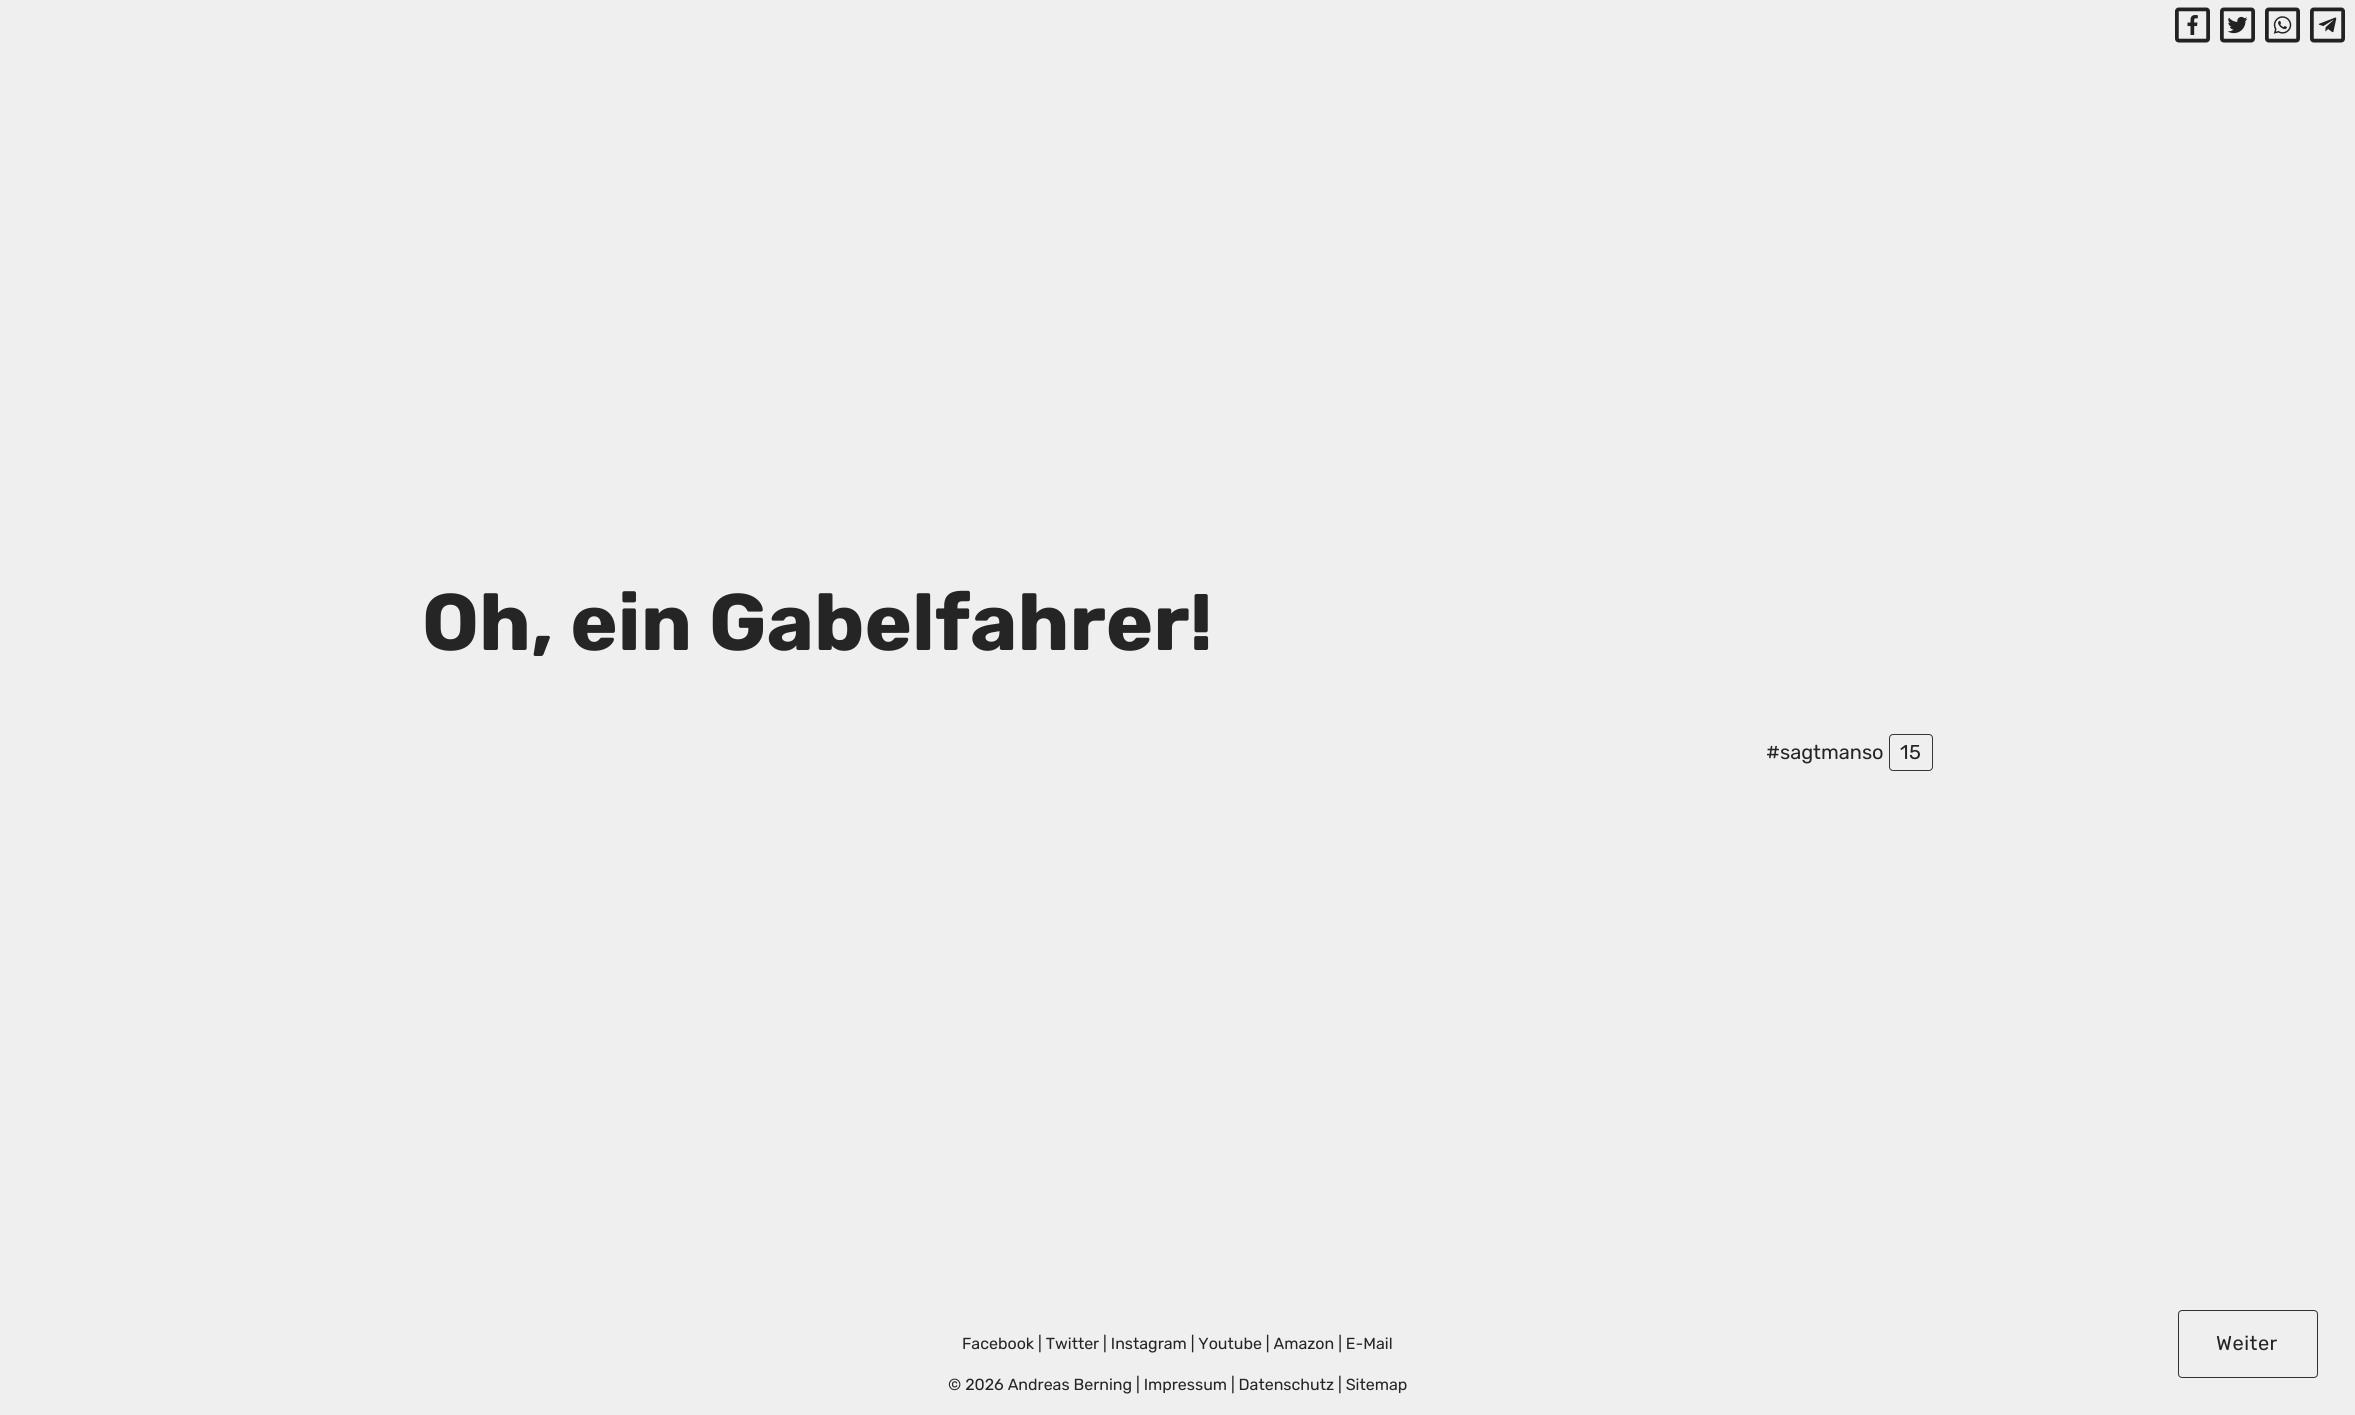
import math
import cairo



def draw_spaced(context, x, y, s, letter, word):
    context.move_to(x, y)
    for ch in s:
        context.show_text(ch)
        context.rel_move_to(letter + word * (ch == ' '), 0)


def rounded_rect(context, x, y, w, h, r):
    context.new_sub_path()
    for i, (u, v) in enumerate([(x + w - r, y + h - r), (x + r, y + h - r), (x + r, y + r), (x + w - r, y + r)]):
        context.arc(u, v, r, i * math.pi / 2, (i + 1) * math.pi / 2)
    context.close_path()


def draw_image(context, path, x, y, w, h):
    context.save()
    context.set_source_surface(cairo.ImageSurface.create_from_png(path), x, y)
    context.rectangle(x, y, w, h)
    context.fill()
    context.restore()


def draw(context):
    context.set_source_rgb(239 / 255, 239 / 255, 239 / 255)
    context.paint()
    draw_image(context, "images/1.png", 2175, 7, 35, 36)
    draw_image(context, "images/2.png", 2187, 15, 11, 20)
    draw_image(context, "images/1.png", 2220, 7, 35, 36)
    draw_image(context, "images/3.png", 2227, 16, 21, 18)
    draw_image(context, "images/1.png", 2265, 7, 35, 36)
    draw_image(context, "images/4.png", 2273, 16, 19, 18)
    draw_image(context, "images/1.png", 2310, 7, 35, 36)
    draw_image(context, "images/5.png", 2318, 17, 19, 16)
    rounded_rect(context, 1889.5, 734.5, 43, 36, 3.5)
    context.set_source_rgb(54 / 255, 54 / 255, 54 / 255)
    context.set_line_width(1)
    context.stroke()
    rounded_rect(context, 2178.5, 1310.5, 139, 67, 3.5)
    context.set_source_rgb(51 / 255, 51 / 255, 51 / 255)
    context.stroke()
    context.select_font_face("Rubik", cairo.FontSlant.NORMAL, cairo.FontWeight.BOLD)
    context.set_font_size(80)
    context.set_source_rgb(37 / 255, 37 / 255, 37 / 255)
    context.move_to(422, 650)
    context.show_text("Oh, ein Gabelfahrer!")
    context.select_font_face("Rubik")
    context.set_font_size(20)
    context.move_to(1766, 759)
    context.show_text("#sagtmanso")
    draw_spaced(context, 1900, 759, "15", 0.5, 0)
    context.set_font_size(16)
    context.move_to(962, 1349)
    context.show_text("Facebook | Twitter | Instagram | Youtube | Amazon | E-Mail")
    context.move_to(948, 1390)
    context.show_text("© 2026 Andreas Berning | Impressum | Datenschutz | Sitemap")
    context.set_font_size(20)
    draw_spaced(context, 2216, 1350, "Weiter", 0.5, 0)


surface = cairo.ImageSurface(cairo.Format.RGB24, 2355, 1415)
context = cairo.Context(surface)
options = cairo.FontOptions()
options.set_hint_metrics(cairo.HintMetrics.OFF)
options.set_hint_style(cairo.HintStyle.NONE)
context.set_font_options(options)
context.set_miter_limit(4)
draw(context)
surface.write_to_png("out.png")
